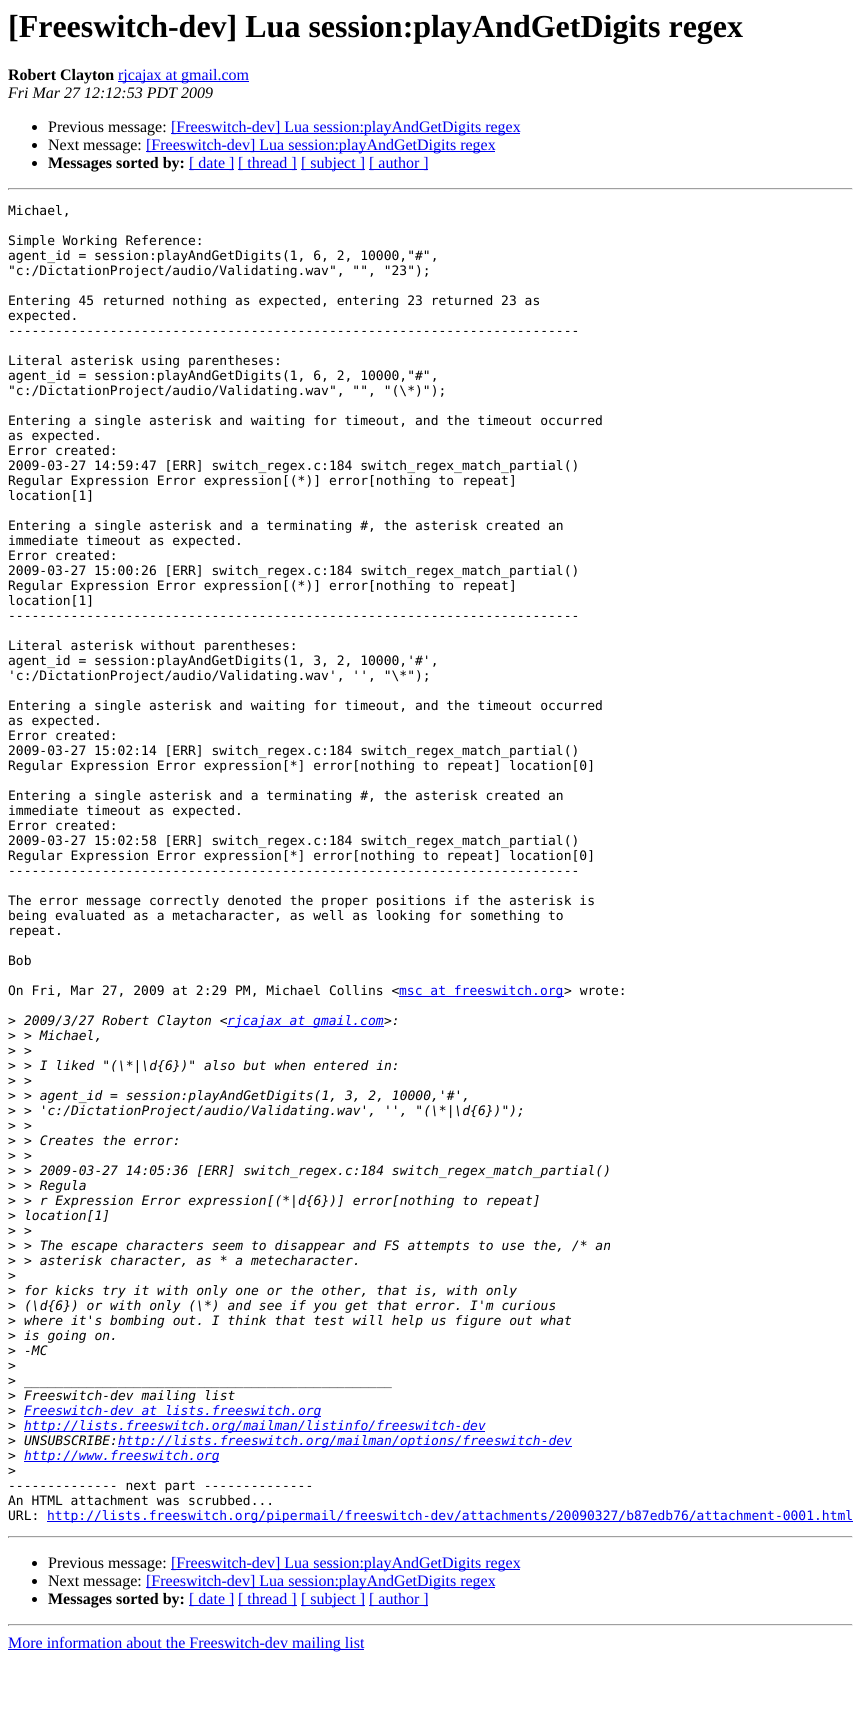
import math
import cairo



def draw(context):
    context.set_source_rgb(1, 1, 1)
    context.paint()
    context.set_source_rgb(0, 0, 238 / 255)
    context.rectangle(118, 81, 131, 1)
    context.fill()
    context.set_source_rgb(0, 0, 0)
    context.arc(34.5, 127.5, 2.5, 0, 2 * math.pi)
    context.fill()
    context.set_source_rgb(0, 0, 238 / 255)
    context.rectangle(171, 133, 349, 1)
    context.fill()
    context.set_source_rgb(0, 0, 0)
    context.arc(34.5, 145.5, 2.5, 0, 2 * math.pi)
    context.fill()
    context.set_source_rgb(0, 0, 238 / 255)
    context.rectangle(146, 151, 349, 1)
    context.fill()
    context.set_source_rgb(0, 0, 0)
    context.arc(34.5, 163.5, 2.5, 0, 2 * math.pi)
    context.fill()
    context.set_source_rgb(0, 0, 238 / 255)
    context.rectangle(189, 169, 45, 1)
    context.fill()
    context.rectangle(238, 169, 59, 1)
    context.fill()
    context.rectangle(301, 169, 64, 1)
    context.fill()
    context.rectangle(369, 169, 59, 1)
    context.fill()
    context.set_source_rgb(159 / 255, 159 / 255, 159 / 255)
    context.rectangle(8, 188, 845, 1)
    context.fill()
    context.set_source_rgb(238 / 255, 238 / 255, 238 / 255)
    context.rectangle(852, 188, 1, 2)
    context.fill()
    context.rectangle(8, 189, 845, 1)
    context.fill()
    context.set_source_rgb(159 / 255, 159 / 255, 159 / 255)
    context.rectangle(8, 188, 1, 2)
    context.fill()
    context.set_source_rgb(0, 0, 238 / 255)
    context.rectangle(399, 996, 165, 1)
    context.fill()
    context.rectangle(227, 1026, 157, 1)
    context.fill()
    context.rectangle(24, 1416, 297, 1)
    context.fill()
    context.rectangle(24, 1431, 461, 1)
    context.fill()
    context.rectangle(118, 1446, 454, 1)
    context.fill()
    context.rectangle(24, 1461, 195, 1)
    context.fill()
    context.rectangle(47, 1521, 806, 1)
    context.fill()
    context.set_source_rgb(159 / 255, 159 / 255, 159 / 255)
    context.rectangle(8, 1536, 845, 1)
    context.fill()
    context.set_source_rgb(238 / 255, 238 / 255, 238 / 255)
    context.rectangle(852, 1536, 1, 2)
    context.fill()
    context.rectangle(8, 1537, 845, 1)
    context.fill()
    context.set_source_rgb(159 / 255, 159 / 255, 159 / 255)
    context.rectangle(8, 1536, 1, 2)
    context.fill()
    context.set_source_rgb(0, 0, 0)
    context.arc(34.5, 1563.5, 2.5, 0, 2 * math.pi)
    context.fill()
    context.set_source_rgb(0, 0, 238 / 255)
    context.rectangle(171, 1569, 349, 1)
    context.fill()
    context.set_source_rgb(0, 0, 0)
    context.arc(34.5, 1581.5, 2.5, 0, 2 * math.pi)
    context.fill()
    context.set_source_rgb(0, 0, 238 / 255)
    context.rectangle(146, 1587, 349, 1)
    context.fill()
    context.set_source_rgb(0, 0, 0)
    context.arc(34.5, 1599.5, 2.5, 0, 2 * math.pi)
    context.fill()
    context.set_source_rgb(0, 0, 238 / 255)
    context.rectangle(189, 1605, 45, 1)
    context.fill()
    context.rectangle(238, 1605, 59, 1)
    context.fill()
    context.rectangle(301, 1605, 64, 1)
    context.fill()
    context.rectangle(369, 1605, 59, 1)
    context.fill()
    context.set_source_rgb(159 / 255, 159 / 255, 159 / 255)
    context.rectangle(8, 1624, 845, 1)
    context.fill()
    context.set_source_rgb(238 / 255, 238 / 255, 238 / 255)
    context.rectangle(852, 1624, 1, 2)
    context.fill()
    context.rectangle(8, 1625, 845, 1)
    context.fill()
    context.set_source_rgb(159 / 255, 159 / 255, 159 / 255)
    context.rectangle(8, 1624, 1, 2)
    context.fill()
    context.set_source_rgb(0, 0, 238 / 255)
    context.rectangle(8, 1649, 356, 1)
    context.fill()
    context.select_font_face("Liberation Serif", cairo.FontSlant.NORMAL, cairo.FontWeight.BOLD)
    context.set_font_size(32)
    context.set_source_rgb(0, 0, 0)
    context.move_to(8, 37)
    context.show_text("[Freeswitch-dev] Lua session:playAndGetDigits regex")
    context.set_font_size(16)
    context.move_to(8, 80)
    context.show_text("Robert Clayton")
    context.select_font_face("Liberation Serif")
    context.set_source_rgb(0, 0, 238 / 255)
    context.move_to(118, 80)
    context.show_text("rjcajax at gmail.com")
    context.select_font_face("Liberation Serif", cairo.FontSlant.ITALIC)
    context.set_source_rgb(0, 0, 0)
    context.move_to(8, 98)
    context.show_text("Fri Mar 27 12:12:53 PDT 2009")
    context.select_font_face("Liberation Serif")
    context.move_to(48, 132)
    context.show_text("Previous message:")
    context.set_source_rgb(0, 0, 238 / 255)
    context.move_to(171, 132)
    context.show_text("[Freeswitch-dev] Lua session:playAndGetDigits regex")
    context.set_source_rgb(0, 0, 0)
    context.move_to(48, 150)
    context.show_text("Next message:")
    context.set_source_rgb(0, 0, 238 / 255)
    context.move_to(146, 150)
    context.show_text("[Freeswitch-dev] Lua session:playAndGetDigits regex")
    context.select_font_face("Liberation Serif", cairo.FontSlant.NORMAL, cairo.FontWeight.BOLD)
    context.set_source_rgb(0, 0, 0)
    context.move_to(48, 168)
    context.show_text("Messages sorted by:")
    context.select_font_face("Liberation Serif")
    context.set_source_rgb(0, 0, 238 / 255)
    context.move_to(189, 168)
    context.show_text("[ date ]")
    context.move_to(238, 168)
    context.show_text("[ thread ]")
    context.move_to(301, 168)
    context.show_text("[ subject ]")
    context.move_to(369, 168)
    context.show_text("[ author ]")
    context.select_font_face("DejaVu Sans Mono")
    context.set_font_size(13)
    context.set_source_rgb(0, 0, 0)
    context.move_to(8, 215)
    context.show_text("Michael,")
    context.move_to(8, 245)
    context.show_text("Simple Working Reference:")
    context.move_to(8, 260)
    context.show_text("agent_id = session:playAndGetDigits(1, 6, 2, 10000,\"#\",")
    context.move_to(8, 275)
    context.show_text("\"c:/DictationProject/audio/Validating.wav\", \"\", \"23\");")
    context.move_to(8, 305)
    context.show_text("Entering 45 returned nothing as expected, entering 23 returned 23 as")
    context.move_to(8, 320)
    context.show_text("expected.")
    context.move_to(8, 335)
    context.show_text("-------------------------------------------------------------------------")
    context.move_to(8, 365)
    context.show_text("Literal asterisk using parentheses:")
    context.move_to(8, 380)
    context.show_text("agent_id = session:playAndGetDigits(1, 6, 2, 10000,\"#\",")
    context.move_to(8, 395)
    context.show_text("\"c:/DictationProject/audio/Validating.wav\", \"\", \"(\\*)\");")
    context.move_to(8, 425)
    context.show_text("Entering a single asterisk and waiting for timeout, and the timeout occurred")
    context.move_to(8, 440)
    context.show_text("as expected.")
    context.move_to(8, 455)
    context.show_text("Error created:")
    context.move_to(8, 470)
    context.show_text("2009-03-27 14:59:47 [ERR] switch_regex.c:184 switch_regex_match_partial()")
    context.move_to(8, 485)
    context.show_text("Regular Expression Error expression[(*)] error[nothing to repeat]")
    context.move_to(8, 500)
    context.show_text("location[1]")
    context.move_to(8, 530)
    context.show_text("Entering a single asterisk and a terminating #, the asterisk created an")
    context.move_to(8, 545)
    context.show_text("immediate timeout as expected.")
    context.move_to(8, 560)
    context.show_text("Error created:")
    context.move_to(8, 575)
    context.show_text("2009-03-27 15:00:26 [ERR] switch_regex.c:184 switch_regex_match_partial()")
    context.move_to(8, 590)
    context.show_text("Regular Expression Error expression[(*)] error[nothing to repeat]")
    context.move_to(8, 605)
    context.show_text("location[1]")
    context.move_to(8, 620)
    context.show_text("-------------------------------------------------------------------------")
    context.move_to(8, 650)
    context.show_text("Literal asterisk without parentheses:")
    context.move_to(8, 665)
    context.show_text("agent_id = session:playAndGetDigits(1, 3, 2, 10000,'#',")
    context.move_to(8, 680)
    context.show_text("'c:/DictationProject/audio/Validating.wav', '', \"\\*\");")
    context.move_to(8, 710)
    context.show_text("Entering a single asterisk and waiting for timeout, and the timeout occurred")
    context.move_to(8, 725)
    context.show_text("as expected.")
    context.move_to(8, 740)
    context.show_text("Error created:")
    context.move_to(8, 755)
    context.show_text("2009-03-27 15:02:14 [ERR] switch_regex.c:184 switch_regex_match_partial()")
    context.move_to(8, 770)
    context.show_text("Regular Expression Error expression[*] error[nothing to repeat] location[0]")
    context.move_to(8, 800)
    context.show_text("Entering a single asterisk and a terminating #, the asterisk created an")
    context.move_to(8, 815)
    context.show_text("immediate timeout as expected.")
    context.move_to(8, 830)
    context.show_text("Error created:")
    context.move_to(8, 845)
    context.show_text("2009-03-27 15:02:58 [ERR] switch_regex.c:184 switch_regex_match_partial()")
    context.move_to(8, 860)
    context.show_text("Regular Expression Error expression[*] error[nothing to repeat] location[0]")
    context.move_to(8, 875)
    context.show_text("-------------------------------------------------------------------------")
    context.move_to(8, 905)
    context.show_text("The error message correctly denoted the proper positions if the asterisk is")
    context.move_to(8, 920)
    context.show_text("being evaluated as a metacharacter, as well as looking for something to")
    context.move_to(8, 935)
    context.show_text("repeat.")
    context.move_to(8, 965)
    context.show_text("Bob")
    context.move_to(8, 995)
    context.show_text("On Fri, Mar 27, 2009 at 2:29 PM, Michael Collins <")
    context.set_source_rgb(0, 0, 238 / 255)
    context.move_to(399, 995)
    context.show_text("msc at freeswitch.org")
    context.set_source_rgb(0, 0, 0)
    context.move_to(564, 995)
    context.show_text("> wrote:")
    context.move_to(8, 1025)
    context.show_text(">")
    context.select_font_face("DejaVu Sans Mono", cairo.FontSlant.ITALIC)
    context.move_to(24, 1025)
    context.show_text("2009/3/27 Robert Clayton <")
    context.set_source_rgb(0, 0, 238 / 255)
    context.move_to(227, 1025)
    context.show_text("rjcajax at gmail.com")
    context.set_source_rgb(0, 0, 0)
    context.move_to(384, 1025)
    context.show_text(">:")
    context.select_font_face("DejaVu Sans Mono")
    context.move_to(8, 1040)
    context.show_text(">")
    context.select_font_face("DejaVu Sans Mono", cairo.FontSlant.ITALIC)
    context.move_to(24, 1040)
    context.show_text("> Michael,")
    context.select_font_face("DejaVu Sans Mono")
    context.move_to(8, 1055)
    context.show_text(">")
    context.select_font_face("DejaVu Sans Mono", cairo.FontSlant.ITALIC)
    context.move_to(24, 1055)
    context.show_text(">")
    context.select_font_face("DejaVu Sans Mono")
    context.move_to(8, 1070)
    context.show_text(">")
    context.select_font_face("DejaVu Sans Mono", cairo.FontSlant.ITALIC)
    context.move_to(24, 1070)
    context.show_text("> I liked \"(\\*|\\d{6})\" also but when entered in:")
    context.select_font_face("DejaVu Sans Mono")
    context.move_to(8, 1085)
    context.show_text(">")
    context.select_font_face("DejaVu Sans Mono", cairo.FontSlant.ITALIC)
    context.move_to(24, 1085)
    context.show_text(">")
    context.select_font_face("DejaVu Sans Mono")
    context.move_to(8, 1100)
    context.show_text(">")
    context.select_font_face("DejaVu Sans Mono", cairo.FontSlant.ITALIC)
    context.move_to(24, 1100)
    context.show_text("> agent_id = session:playAndGetDigits(1, 3, 2, 10000,'#',")
    context.select_font_face("DejaVu Sans Mono")
    context.move_to(8, 1115)
    context.show_text(">")
    context.select_font_face("DejaVu Sans Mono", cairo.FontSlant.ITALIC)
    context.move_to(24, 1115)
    context.show_text("> 'c:/DictationProject/audio/Validating.wav', '', \"(\\*|\\d{6})\");")
    context.select_font_face("DejaVu Sans Mono")
    context.move_to(8, 1130)
    context.show_text(">")
    context.select_font_face("DejaVu Sans Mono", cairo.FontSlant.ITALIC)
    context.move_to(24, 1130)
    context.show_text(">")
    context.select_font_face("DejaVu Sans Mono")
    context.move_to(8, 1145)
    context.show_text(">")
    context.select_font_face("DejaVu Sans Mono", cairo.FontSlant.ITALIC)
    context.move_to(24, 1145)
    context.show_text("> Creates the error:")
    context.select_font_face("DejaVu Sans Mono")
    context.move_to(8, 1160)
    context.show_text(">")
    context.select_font_face("DejaVu Sans Mono", cairo.FontSlant.ITALIC)
    context.move_to(24, 1160)
    context.show_text(">")
    context.select_font_face("DejaVu Sans Mono")
    context.move_to(8, 1175)
    context.show_text(">")
    context.select_font_face("DejaVu Sans Mono", cairo.FontSlant.ITALIC)
    context.move_to(24, 1175)
    context.show_text("> 2009-03-27 14:05:36 [ERR] switch_regex.c:184 switch_regex_match_partial()")
    context.select_font_face("DejaVu Sans Mono")
    context.move_to(8, 1190)
    context.show_text(">")
    context.select_font_face("DejaVu Sans Mono", cairo.FontSlant.ITALIC)
    context.move_to(24, 1190)
    context.show_text("> Regula")
    context.select_font_face("DejaVu Sans Mono")
    context.move_to(8, 1205)
    context.show_text(">")
    context.select_font_face("DejaVu Sans Mono", cairo.FontSlant.ITALIC)
    context.move_to(24, 1205)
    context.show_text("> r Expression Error expression[(*|d{6})] error[nothing to repeat]")
    context.select_font_face("DejaVu Sans Mono")
    context.move_to(8, 1220)
    context.show_text(">")
    context.select_font_face("DejaVu Sans Mono", cairo.FontSlant.ITALIC)
    context.move_to(24, 1220)
    context.show_text("location[1]")
    context.select_font_face("DejaVu Sans Mono")
    context.move_to(8, 1235)
    context.show_text(">")
    context.select_font_face("DejaVu Sans Mono", cairo.FontSlant.ITALIC)
    context.move_to(24, 1235)
    context.show_text(">")
    context.select_font_face("DejaVu Sans Mono")
    context.move_to(8, 1250)
    context.show_text(">")
    context.select_font_face("DejaVu Sans Mono", cairo.FontSlant.ITALIC)
    context.move_to(24, 1250)
    context.show_text("> The escape characters seem to disappear and FS attempts to use the, /* an")
    context.select_font_face("DejaVu Sans Mono")
    context.move_to(8, 1265)
    context.show_text(">")
    context.select_font_face("DejaVu Sans Mono", cairo.FontSlant.ITALIC)
    context.move_to(24, 1265)
    context.show_text("> asterisk character, as * a metecharacter.")
    context.select_font_face("DejaVu Sans Mono")
    context.move_to(8, 1280)
    context.show_text(">")
    context.move_to(8, 1295)
    context.show_text(">")
    context.select_font_face("DejaVu Sans Mono", cairo.FontSlant.ITALIC)
    context.move_to(24, 1295)
    context.show_text("for kicks try it with only one or the other, that is, with only")
    context.select_font_face("DejaVu Sans Mono")
    context.move_to(8, 1310)
    context.show_text(">")
    context.select_font_face("DejaVu Sans Mono", cairo.FontSlant.ITALIC)
    context.move_to(24, 1310)
    context.show_text("(\\d{6}) or with only (\\*) and see if you get that error. I'm curious")
    context.select_font_face("DejaVu Sans Mono")
    context.move_to(8, 1325)
    context.show_text(">")
    context.select_font_face("DejaVu Sans Mono", cairo.FontSlant.ITALIC)
    context.move_to(24, 1325)
    context.show_text("where it's bombing out. I think that test will help us figure out what")
    context.select_font_face("DejaVu Sans Mono")
    context.move_to(8, 1340)
    context.show_text(">")
    context.select_font_face("DejaVu Sans Mono", cairo.FontSlant.ITALIC)
    context.move_to(24, 1340)
    context.show_text("is going on.")
    context.select_font_face("DejaVu Sans Mono")
    context.move_to(8, 1355)
    context.show_text(">")
    context.select_font_face("DejaVu Sans Mono", cairo.FontSlant.ITALIC)
    context.move_to(24, 1355)
    context.show_text("-MC")
    context.select_font_face("DejaVu Sans Mono")
    context.move_to(8, 1370)
    context.show_text(">")
    context.move_to(8, 1385)
    context.show_text(">")
    context.select_font_face("DejaVu Sans Mono", cairo.FontSlant.ITALIC)
    context.move_to(24, 1385)
    context.show_text("_______________________________________________")
    context.select_font_face("DejaVu Sans Mono")
    context.move_to(8, 1400)
    context.show_text(">")
    context.select_font_face("DejaVu Sans Mono", cairo.FontSlant.ITALIC)
    context.move_to(24, 1400)
    context.show_text("Freeswitch-dev mailing list")
    context.select_font_face("DejaVu Sans Mono")
    context.move_to(8, 1415)
    context.show_text(">")
    context.select_font_face("DejaVu Sans Mono", cairo.FontSlant.ITALIC)
    context.set_source_rgb(0, 0, 238 / 255)
    context.move_to(24, 1415)
    context.show_text("Freeswitch-dev at lists.freeswitch.org")
    context.select_font_face("DejaVu Sans Mono")
    context.set_source_rgb(0, 0, 0)
    context.move_to(8, 1430)
    context.show_text(">")
    context.select_font_face("DejaVu Sans Mono", cairo.FontSlant.ITALIC)
    context.set_source_rgb(0, 0, 238 / 255)
    context.move_to(24, 1430)
    context.show_text("http://lists.freeswitch.org/mailman/listinfo/freeswitch-dev")
    context.select_font_face("DejaVu Sans Mono")
    context.set_source_rgb(0, 0, 0)
    context.move_to(8, 1445)
    context.show_text(">")
    context.select_font_face("DejaVu Sans Mono", cairo.FontSlant.ITALIC)
    context.move_to(24, 1445)
    context.show_text("UNSUBSCRIBE:")
    context.set_source_rgb(0, 0, 238 / 255)
    context.move_to(118, 1445)
    context.show_text("http://lists.freeswitch.org/mailman/options/freeswitch-dev")
    context.select_font_face("DejaVu Sans Mono")
    context.set_source_rgb(0, 0, 0)
    context.move_to(8, 1460)
    context.show_text(">")
    context.select_font_face("DejaVu Sans Mono", cairo.FontSlant.ITALIC)
    context.set_source_rgb(0, 0, 238 / 255)
    context.move_to(24, 1460)
    context.show_text("http://www.freeswitch.org")
    context.select_font_face("DejaVu Sans Mono")
    context.set_source_rgb(0, 0, 0)
    context.move_to(8, 1475)
    context.show_text(">")
    context.move_to(8, 1490)
    context.show_text("-------------- next part --------------")
    context.move_to(8, 1505)
    context.show_text("An HTML attachment was scrubbed...")
    context.move_to(8, 1520)
    context.show_text("URL:")
    context.set_source_rgb(0, 0, 238 / 255)
    context.move_to(47, 1520)
    context.show_text("http://lists.freeswitch.org/pipermail/freeswitch-dev/attachments/20090327/b87edb76/attachment-0001.html")
    context.select_font_face("Liberation Serif")
    context.set_font_size(16)
    context.set_source_rgb(0, 0, 0)
    context.move_to(48, 1568)
    context.show_text("Previous message:")
    context.set_source_rgb(0, 0, 238 / 255)
    context.move_to(171, 1568)
    context.show_text("[Freeswitch-dev] Lua session:playAndGetDigits regex")
    context.set_source_rgb(0, 0, 0)
    context.move_to(48, 1586)
    context.show_text("Next message:")
    context.set_source_rgb(0, 0, 238 / 255)
    context.move_to(146, 1586)
    context.show_text("[Freeswitch-dev] Lua session:playAndGetDigits regex")
    context.select_font_face("Liberation Serif", cairo.FontSlant.NORMAL, cairo.FontWeight.BOLD)
    context.set_source_rgb(0, 0, 0)
    context.move_to(48, 1604)
    context.show_text("Messages sorted by:")
    context.select_font_face("Liberation Serif")
    context.set_source_rgb(0, 0, 238 / 255)
    context.move_to(189, 1604)
    context.show_text("[ date ]")
    context.move_to(238, 1604)
    context.show_text("[ thread ]")
    context.move_to(301, 1604)
    context.show_text("[ subject ]")
    context.move_to(369, 1604)
    context.show_text("[ author ]")
    context.move_to(8, 1648)
    context.show_text("More information about the Freeswitch-dev mailing list")


surface = cairo.ImageSurface(cairo.Format.RGB24, 861, 1727)
context = cairo.Context(surface)
options = cairo.FontOptions()
options.set_hint_metrics(cairo.HintMetrics.OFF)
options.set_hint_style(cairo.HintStyle.NONE)
context.set_font_options(options)
context.set_miter_limit(4)
draw(context)
surface.write_to_png("out.png")
